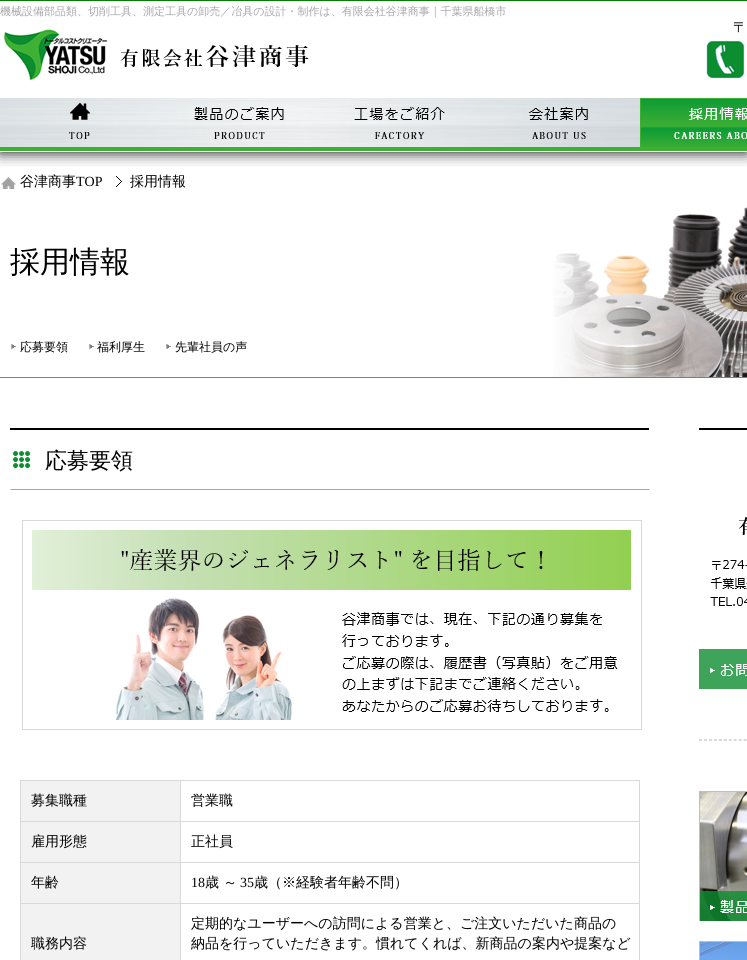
import math
import cairo



def rounded_rect(context, x, y, w, h, r):
    context.new_sub_path()
    for i, (u, v) in enumerate([(x + w - r, y + h - r), (x + r, y + h - r), (x + r, y + r), (x + w - r, y + r)]):
        context.arc(u, v, r, i * math.pi / 2, (i + 1) * math.pi / 2)
    context.close_path()


def draw_shadow(context, x, y, w, h, r, blur, alpha):
    context.push_group_with_content(cairo.Content.ALPHA)
    context.set_operator(cairo.Operator.SOURCE)
    for i in range(15, -16, -2):
        e = blur * i / 6
        if min(w, h) + 2 * e > 0:
            context.set_source_rgba(0, 0, 0, alpha * math.erfc((i - 1) / 8.5) / 2)
            rounded_rect(context, x - e, y - e, w + 2 * e, h + 2 * e, max(0, min(r + e + blur * .6, min(w, h) / 2 + e)))
            context.fill()
    context.mask(context.pop_group())


def draw_image(context, path, x, y, w, h):
    context.save()
    context.set_source_surface(cairo.ImageSurface.create_from_png(path), x, y)
    context.rectangle(x, y, w, h)
    context.fill()
    context.restore()


def draw(context):
    context.set_source_rgb(1, 1, 1)
    context.paint()
    context.save()
    context.rectangle(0, 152, 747, 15)
    context.clip()
    context.set_source_rgb(0, 0, 0)
    draw_shadow(context, 0, 0, 747, 152, 0, 7.5, 1)
    context.restore()
    draw_image(context, "images/1.png", 0, 147, 747, 4)
    context.set_source_rgb(0, 128 / 255, 0)
    context.rectangle(0, 0, 747, 1)
    context.fill()
    draw_image(context, "images/2.png", 3, 29, 306, 52)
    draw_image(context, "images/3.png", 706, 40, 39, 39)
    draw_image(context, "images/4.png", 0, 98, 160, 49)
    draw_image(context, "images/5.png", 160, 98, 160, 49)
    draw_image(context, "images/6.png", 320, 98, 160, 49)
    draw_image(context, "images/7.png", 480, 98, 160, 49)
    draw_image(context, "images/8.png", 640, 98, 107, 49)
    draw_image(context, "images/9.png", 553, 207, 194, 170)
    context.set_source_rgb(61 / 255, 175 / 255, 51 / 255)
    context.rectangle(0, 377, 747, 1)
    context.fill()
    draw_image(context, "images/10.png", 1, 177, 15, 12)
    draw_image(context, "images/11.png", 116, 176, 6, 11)
    draw_image(context, "images/12.png", 11, 344, 5, 5)
    draw_image(context, "images/12.png", 89, 344, 5, 5)
    draw_image(context, "images/12.png", 166, 344, 5, 5)
    draw_image(context, "images/13.png", 10, 428, 640, 62)
    draw_image(context, "images/14.png", 22, 520, 620, 210)
    context.set_source_rgb(242 / 255, 242 / 255, 242 / 255)
    context.rectangle(21, 781, 159, 40)
    context.fill()
    context.set_source_rgb(217 / 255, 217 / 255, 217 / 255)
    context.rectangle(180, 780, 460, 1)
    context.fill()
    context.rectangle(180, 821, 460, 1)
    context.fill()
    context.rectangle(180, 862, 460, 1)
    context.fill()
    context.rectangle(180, 903, 460, 1)
    context.fill()
    context.rectangle(180, 903, 1, 57)
    context.fill()
    context.rectangle(20, 903, 161, 1)
    context.fill()
    context.rectangle(180, 862, 1, 42)
    context.fill()
    context.rectangle(20, 862, 161, 1)
    context.fill()
    context.rectangle(180, 821, 1, 42)
    context.fill()
    context.rectangle(20, 821, 161, 1)
    context.fill()
    context.rectangle(180, 780, 1, 42)
    context.fill()
    context.rectangle(20, 780, 161, 1)
    context.fill()
    context.rectangle(20, 903, 1, 57)
    context.fill()
    context.rectangle(20, 862, 1, 42)
    context.fill()
    context.rectangle(20, 821, 1, 42)
    context.fill()
    context.rectangle(20, 780, 1, 42)
    context.fill()
    context.rectangle(639, 903, 1, 57)
    context.fill()
    context.rectangle(639, 862, 1, 42)
    context.fill()
    context.rectangle(639, 821, 1, 42)
    context.fill()
    context.rectangle(639, 780, 1, 42)
    context.fill()
    context.set_source_rgb(242 / 255, 242 / 255, 242 / 255)
    context.rectangle(21, 822, 159, 40)
    context.fill()
    context.rectangle(21, 863, 159, 40)
    context.fill()
    context.rectangle(21, 904, 159, 56)
    context.fill()
    draw_image(context, "images/15.png", 699, 428, 48, 261)
    context.new_path()
    context.move_to(699, 739.5)
    context.line_to(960, 739.5)
    context.move_to(699, 740.5)
    context.line_to(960, 740.5)
    context.set_source_rgb(217 / 255, 217 / 255, 217 / 255)
    context.set_line_width(1)
    context.set_dash([3, 1.96])
    context.stroke()
    draw_image(context, "images/16.png", 699, 791, 48, 130)
    draw_image(context, "images/17.png", 699, 941, 48, 19)
    context.select_font_face("WenQuanYi Zen Hei Medium")
    context.set_font_size(11)
    context.set_source_rgb(166 / 255, 166 / 255, 166 / 255)
    context.move_to(0, 15)
    context.show_text("機械設備部品類、切削工具、測定工具の卸売／冶具の設計・制作は、有限会社谷津商事｜千葉県船橋市")
    context.set_font_size(14)
    context.set_source_rgb(0, 0, 0)
    context.move_to(733, 32)
    context.show_text("〒")
    context.move_to(20, 186)
    context.show_text("谷津商事")
    context.select_font_face("Liberation Serif")
    context.move_to(76, 186)
    context.show_text("TOP")
    context.select_font_face("WenQuanYi Zen Hei Medium")
    context.move_to(130, 186)
    context.show_text("採用情報")
    context.set_font_size(30)
    context.move_to(10, 272)
    context.show_text("採用情報")
    context.set_font_size(12)
    context.move_to(20, 351)
    context.show_text("応募要領")
    context.move_to(97, 351)
    context.show_text("福利厚生")
    context.move_to(175, 351)
    context.show_text("先輩社員の声")
    context.set_font_size(22)
    context.move_to(45, 468)
    context.show_text("応募要領")
    context.set_font_size(14)
    context.move_to(31, 805)
    context.show_text("募集職種")
    context.move_to(191, 805)
    context.show_text("営業職")
    context.move_to(31, 846)
    context.show_text("雇用形態")
    context.move_to(191, 846)
    context.show_text("正社員")
    context.move_to(31, 887)
    context.show_text("年齢")
    context.select_font_face("Liberation Serif")
    context.move_to(191, 887)
    context.show_text("18")
    context.select_font_face("WenQuanYi Zen Hei Medium")
    context.move_to(205, 887)
    context.show_text("歳 ～")
    context.select_font_face("Liberation Serif")
    context.move_to(240, 887)
    context.show_text("35")
    context.select_font_face("WenQuanYi Zen Hei Medium")
    context.move_to(254, 887)
    context.show_text("歳（※経験者年齢不問）")
    context.move_to(31, 948)
    context.show_text("職務内容")
    context.move_to(191, 928)
    context.show_text("定期的なユーザーへの訪問による営業と、ご注文いただいた商品の")
    context.move_to(191, 948)
    context.show_text("納品を行っていただきます。慣れてくれば、新商品の案内や提案など")


surface = cairo.ImageSurface(cairo.Format.RGB24, 747, 960)
context = cairo.Context(surface)
options = cairo.FontOptions()
options.set_hint_metrics(cairo.HintMetrics.OFF)
options.set_hint_style(cairo.HintStyle.NONE)
context.set_font_options(options)
context.set_miter_limit(4)
draw(context)
surface.write_to_png("out.png")
